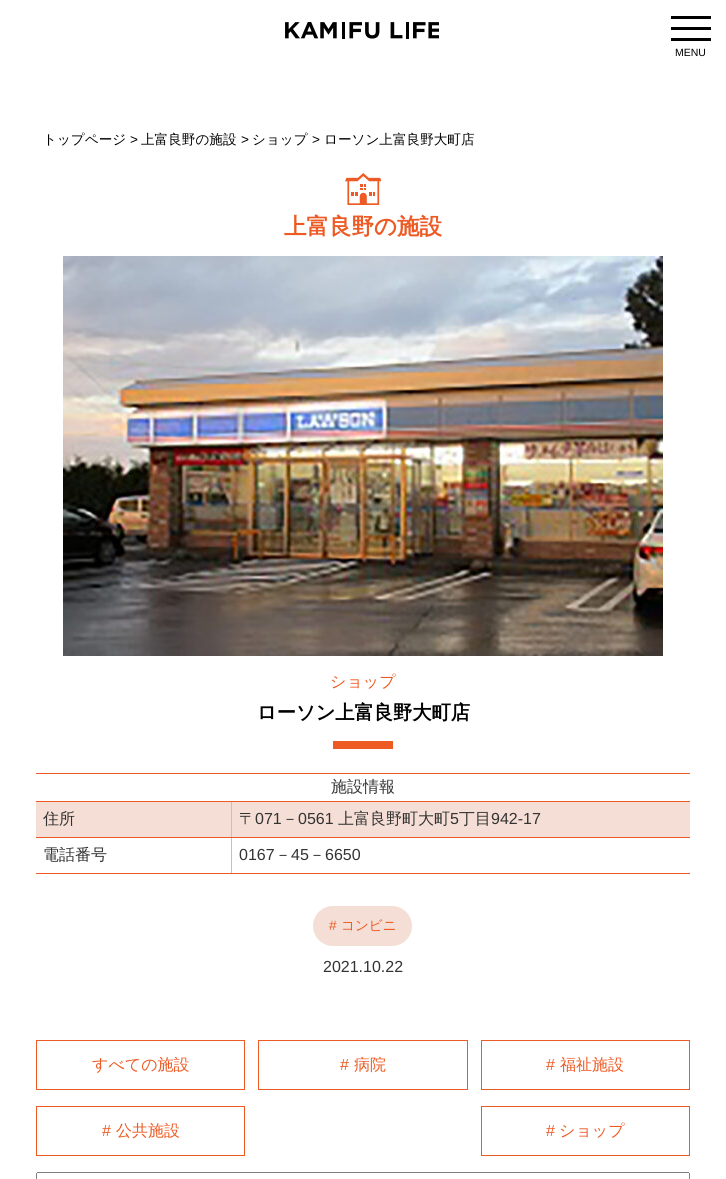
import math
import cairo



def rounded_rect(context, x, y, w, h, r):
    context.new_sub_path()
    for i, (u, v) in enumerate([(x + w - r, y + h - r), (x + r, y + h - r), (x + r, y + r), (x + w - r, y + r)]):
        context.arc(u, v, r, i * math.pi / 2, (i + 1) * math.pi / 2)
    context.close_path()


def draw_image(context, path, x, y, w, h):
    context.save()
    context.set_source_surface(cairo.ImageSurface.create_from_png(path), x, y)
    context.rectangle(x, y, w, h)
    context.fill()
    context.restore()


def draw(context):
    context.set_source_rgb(1, 1, 1)
    context.paint()
    draw_image(context, "images/1.png", 285, 22, 154, 17)
    context.set_source_rgb(0, 0, 0)
    context.rectangle(671, 16, 40, 3)
    context.fill()
    context.rectangle(671, 27, 40, 3)
    context.fill()
    context.rectangle(671, 38, 40, 3)
    context.fill()
    draw_image(context, "images/2.png", 345, 173, 36, 32)
    draw_image(context, "images/3.png", 63, 256, 600, 400)
    context.set_source_rgb(237 / 255, 90 / 255, 36 / 255)
    context.rectangle(333, 741, 60, 8)
    context.fill()
    context.rectangle(36, 773, 654, 1)
    context.fill()
    context.rectangle(36, 801, 654, 1)
    context.fill()
    context.set_source_rgb(245 / 255, 222 / 255, 213 / 255)
    context.rectangle(36, 802, 654, 35)
    context.fill()
    context.set_source_rgb(194 / 255, 194 / 255, 194 / 255)
    context.rectangle(231, 802, 1, 72)
    context.fill()
    context.set_source_rgb(237 / 255, 90 / 255, 36 / 255)
    context.rectangle(36, 837, 654, 1)
    context.fill()
    context.rectangle(36, 873, 654, 1)
    context.fill()
    context.set_source_rgb(245 / 255, 222 / 255, 213 / 255)
    rounded_rect(context, 313, 906, 99, 40, 20)
    context.fill()
    context.rectangle(36.5, 1040.5, 208, 49)
    context.set_source_rgb(237 / 255, 90 / 255, 36 / 255)
    context.set_line_width(1)
    context.stroke()
    context.rectangle(258.5, 1040.5, 209, 49)
    context.stroke()
    context.rectangle(481.5, 1040.5, 208, 49)
    context.stroke()
    context.rectangle(36.5, 1106.5, 208, 49)
    context.stroke()
    context.rectangle(481.5, 1106.5, 208, 49)
    context.stroke()
    context.set_source_rgb(127 / 255, 127 / 255, 127 / 255)
    context.rectangle(37, 1172, 652, 1)
    context.fill()
    context.rectangle(36, 1173, 1, 6)
    context.fill()
    context.rectangle(689, 1173, 1, 6)
    context.fill()
    context.select_font_face("Liberation Sans")
    context.set_font_size(10.5)
    context.set_source_rgb(0, 0, 0)
    context.move_to(675, 56)
    context.show_text("MENU")
    context.select_font_face("WenQuanYi Zen Hei Medium")
    context.set_font_size(13.6)
    context.move_to(43, 144)
    context.show_text("トップページ")
    context.select_font_face("Liberation Sans")
    context.move_to(130, 144)
    context.show_text(">")
    context.select_font_face("WenQuanYi Zen Hei Medium")
    context.move_to(141, 144)
    context.show_text("上富良野の施設")
    context.select_font_face("Liberation Sans")
    context.move_to(241, 144)
    context.show_text(">")
    context.select_font_face("WenQuanYi Zen Hei Medium")
    context.move_to(252, 144)
    context.show_text("ショップ")
    context.select_font_face("Liberation Sans")
    context.move_to(312, 144)
    context.show_text(">")
    context.select_font_face("WenQuanYi Zen Hei Medium")
    context.move_to(324, 144)
    context.show_text("ローソン上富良野大町店")
    context.select_font_face("WenQuanYi Zen Hei", cairo.FontSlant.NORMAL, cairo.FontWeight.BOLD)
    context.set_font_size(22.5)
    context.set_source_rgb(237 / 255, 90 / 255, 36 / 255)
    context.move_to(284, 234)
    context.show_text("上富良野の施設")
    context.select_font_face("WenQuanYi Zen Hei Medium")
    context.set_font_size(16)
    context.move_to(330, 687)
    context.show_text("ショップ")
    context.select_font_face("WenQuanYi Zen Hei", cairo.FontSlant.NORMAL, cairo.FontWeight.BOLD)
    context.set_font_size(19.25)
    context.set_source_rgb(0, 0, 0)
    context.move_to(257, 719)
    context.show_text("ローソン上富良野大町店")
    context.select_font_face("WenQuanYi Zen Hei Medium")
    context.set_font_size(16)
    context.set_source_rgb(51 / 255, 51 / 255, 51 / 255)
    context.move_to(331, 792)
    context.show_text("施設情報")
    context.move_to(43, 824)
    context.show_text("住所")
    context.move_to(239, 824)
    context.show_text("〒")
    context.select_font_face("Liberation Sans")
    context.move_to(255, 824)
    context.show_text("071")
    context.select_font_face("WenQuanYi Zen Hei Medium")
    context.move_to(282, 824)
    context.show_text("－")
    context.select_font_face("Liberation Sans")
    context.move_to(298, 824)
    context.show_text("0561")
    context.select_font_face("WenQuanYi Zen Hei Medium")
    context.move_to(338, 824)
    context.show_text("上富良野町大町")
    context.select_font_face("Liberation Sans")
    context.move_to(450, 824)
    context.show_text("5")
    context.select_font_face("WenQuanYi Zen Hei Medium")
    context.move_to(459, 824)
    context.show_text("丁目")
    context.select_font_face("Liberation Sans")
    context.move_to(491, 824)
    context.show_text("942-17")
    context.select_font_face("WenQuanYi Zen Hei Medium")
    context.move_to(43, 860)
    context.show_text("電話番号")
    context.select_font_face("Liberation Sans")
    context.move_to(239, 860)
    context.show_text("0167")
    context.select_font_face("WenQuanYi Zen Hei Medium")
    context.move_to(275, 860)
    context.show_text("－")
    context.select_font_face("Liberation Sans")
    context.move_to(291, 860)
    context.show_text("45")
    context.select_font_face("WenQuanYi Zen Hei Medium")
    context.move_to(309, 860)
    context.show_text("－")
    context.select_font_face("Liberation Sans")
    context.move_to(325, 860)
    context.show_text("6650")
    context.set_font_size(13.6)
    context.set_source_rgb(237 / 255, 90 / 255, 36 / 255)
    context.move_to(329, 930)
    context.show_text("#")
    context.select_font_face("WenQuanYi Zen Hei Medium")
    context.move_to(341, 930)
    context.show_text("コンビニ")
    context.select_font_face("Liberation Sans")
    context.set_font_size(16)
    context.set_source_rgb(51 / 255, 51 / 255, 51 / 255)
    context.move_to(323, 972)
    context.show_text("2021.10.22")
    context.select_font_face("WenQuanYi Zen Hei Medium")
    context.set_source_rgb(237 / 255, 90 / 255, 36 / 255)
    context.move_to(92, 1070)
    context.show_text("すべての施設")
    context.select_font_face("Liberation Sans")
    context.move_to(340, 1070)
    context.show_text("#")
    context.select_font_face("WenQuanYi Zen Hei Medium")
    context.move_to(354, 1070)
    context.show_text("病院")
    context.select_font_face("Liberation Sans")
    context.move_to(546, 1070)
    context.show_text("#")
    context.select_font_face("WenQuanYi Zen Hei Medium")
    context.move_to(560, 1070)
    context.show_text("福祉施設")
    context.select_font_face("Liberation Sans")
    context.move_to(102, 1136)
    context.show_text("#")
    context.select_font_face("WenQuanYi Zen Hei Medium")
    context.move_to(116, 1136)
    context.show_text("公共施設")
    context.select_font_face("Liberation Sans")
    context.move_to(546, 1136)
    context.show_text("#")
    context.select_font_face("WenQuanYi Zen Hei Medium")
    context.move_to(559, 1136)
    context.show_text("ショップ")


surface = cairo.ImageSurface(cairo.Format.RGB24, 726, 1179)
context = cairo.Context(surface)
options = cairo.FontOptions()
options.set_hint_metrics(cairo.HintMetrics.OFF)
options.set_hint_style(cairo.HintStyle.NONE)
context.set_font_options(options)
context.set_miter_limit(4)
draw(context)
surface.write_to_png("out.png")
